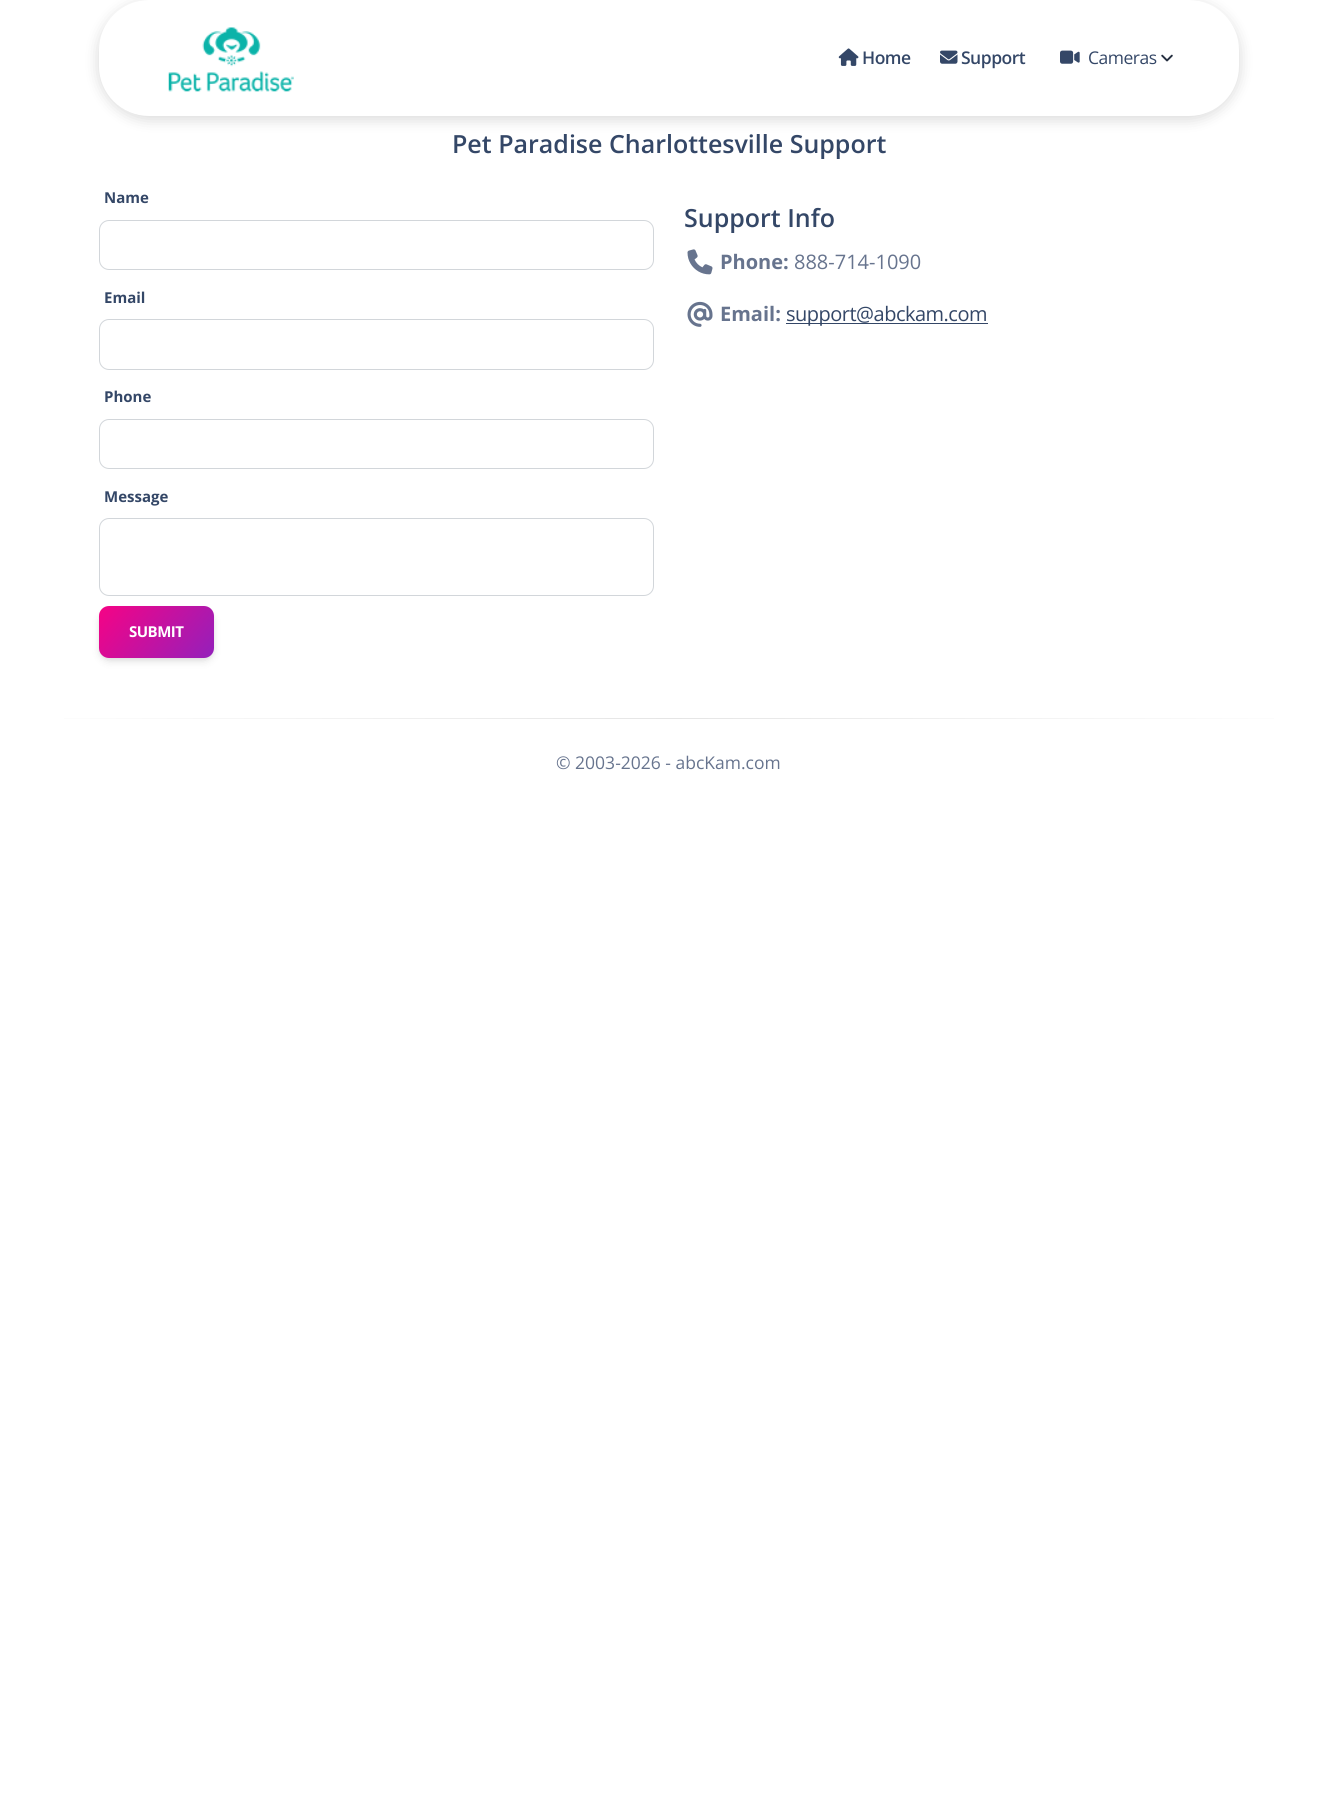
import math
import cairo



def draw_spaced(context, x, y, s, letter, word):
    context.move_to(x, y)
    for ch in s:
        context.show_text(ch)
        context.rel_move_to(letter + word * (ch == ' '), 0)


def rounded_rect(context, x, y, w, h, r):
    context.new_sub_path()
    for i, (u, v) in enumerate([(x + w - r, y + h - r), (x + r, y + h - r), (x + r, y + r), (x + w - r, y + r)]):
        context.arc(u, v, r, i * math.pi / 2, (i + 1) * math.pi / 2)
    context.close_path()


def draw_shadow(context, x, y, w, h, r, blur, alpha):
    context.push_group_with_content(cairo.Content.ALPHA)
    context.set_operator(cairo.Operator.SOURCE)
    for i in range(15, -16, -2):
        e = blur * i / 6
        if min(w, h) + 2 * e > 0:
            context.set_source_rgba(0, 0, 0, alpha * math.erfc((i - 1) / 8.5) / 2)
            rounded_rect(context, x - e, y - e, w + 2 * e, h + 2 * e, max(0, min(r + e + blur * .6, min(w, h) / 2 + e)))
            context.fill()
    context.mask(context.pop_group())


def draw_image(context, path, x, y, w, h):
    context.save()
    context.set_source_surface(cairo.ImageSurface.create_from_png(path), x, y)
    context.rectangle(x, y, w, h)
    context.fill()
    context.restore()


def draw(context):
    context.set_source_rgb(1, 1, 1)
    context.paint()
    context.set_source_rgb(0, 0, 0)
    draw_shadow(context, 99, 3, 1140, 116, 50, 7.5, 0.16)
    context.set_source_rgb(1, 1, 1)
    rounded_rect(context, 99, 0, 1140, 116, 50)
    context.fill()
    draw_image(context, "images/1.png", 168, 27, 126, 65)
    draw_image(context, "images/2.png", 838, 48, 21, 18)
    draw_image(context, "images/3.png", 940, 50, 18, 14)
    draw_image(context, "images/4.png", 1060, 50, 20, 14)
    draw_image(context, "images/5.png", 1161, 54, 12, 8)
    rounded_rect(context, 99.5, 220.5, 554, 49, 9.5)
    context.set_source_rgb(210 / 255, 214 / 255, 218 / 255)
    context.set_line_width(1)
    context.stroke()
    rounded_rect(context, 99.5, 319.5, 554, 50, 9.5)
    context.stroke()
    rounded_rect(context, 99.5, 419.5, 554, 49, 9.5)
    context.stroke()
    rounded_rect(context, 99.5, 518.5, 554, 77, 9.5)
    context.stroke()
    context.set_source_rgb(0, 0, 0)
    draw_shadow(context, 100, 610, 113, 49, 9, 2.5, 0.07)
    draw_shadow(context, 100, 613, 113, 48, 9, 4.5, 0.11)
    gradient = cairo.LinearGradient(234, 685, 107, 579)
    gradient.add_color_stop_rgba(0, 121 / 255, 40 / 255, 202 / 255, 1)
    gradient.add_color_stop_rgba(1, 1, 0, 128 / 255, 1)
    context.set_source(gradient)
    rounded_rect(context, 99, 606, 115, 52, 10)
    context.fill()
    draw_image(context, "images/6.png", 687, 249, 26, 26)
    draw_image(context, "images/7.png", 687, 301, 26, 26)
    context.set_source_rgb(52 / 255, 71 / 255, 103 / 255)
    context.rectangle(786, 323, 202, 1)
    context.fill()
    gradient = cairo.LinearGradient(0, 718, 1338, 718)
    gradient.add_color_stop_rgba(0, 1, 1, 1, 1)
    gradient.add_color_stop_rgba(0.5, 229 / 255, 229 / 255, 229 / 255, 1)
    gradient.add_color_stop_rgba(1, 1, 1, 1, 1)
    context.set_source(gradient)
    context.rectangle(64, 718, 1210, 1)
    context.fill()
    context.select_font_face("Open Sans SemiBold")
    context.set_font_size(17.5)
    context.set_source_rgb(52 / 255, 71 / 255, 103 / 255)
    draw_spaced(context, 862, 64, "Home", -0.5, 0)
    draw_spaced(context, 961, 64, "Support", -0.5, 0)
    context.select_font_face("Open Sans")
    draw_spaced(context, 1088, 64, "Cameras", -0.5, 0)
    context.select_font_face("Open Sans SemiBold")
    context.set_font_size(25)
    context.move_to(452, 153)
    context.show_text("Pet Paradise Charlottesville Support")
    context.select_font_face("Open Sans", cairo.FontSlant.NORMAL, cairo.FontWeight.BOLD)
    context.set_font_size(15)
    context.move_to(104, 203)
    context.show_text("Name")
    context.move_to(104, 303)
    context.show_text("Email")
    context.move_to(104, 402)
    context.show_text("Phone")
    context.move_to(104, 502)
    context.show_text("Message")
    context.set_source_rgb(1, 1, 1)
    draw_spaced(context, 129, 637, "SUBMIT", -0.5, 0)
    context.select_font_face("Open Sans SemiBold")
    context.set_font_size(25)
    context.set_source_rgb(52 / 255, 71 / 255, 103 / 255)
    context.move_to(684, 227)
    context.show_text("Support Info")
    context.select_font_face("Open Sans", cairo.FontSlant.NORMAL, cairo.FontWeight.BOLD)
    context.set_font_size(20)
    context.set_source_rgb(103 / 255, 116 / 255, 142 / 255)
    context.move_to(720, 269)
    context.show_text("Phone:")
    context.select_font_face("Open Sans")
    context.move_to(794, 269)
    context.show_text("888-714-1090")
    context.select_font_face("Open Sans", cairo.FontSlant.NORMAL, cairo.FontWeight.BOLD)
    context.move_to(720, 321)
    context.show_text("Email:")
    context.select_font_face("Open Sans")
    context.set_source_rgb(52 / 255, 71 / 255, 103 / 255)
    draw_spaced(context, 786, 321, "support@abckam.com", -0.5, 0)
    context.set_font_size(17.5)
    context.set_source_rgb(103 / 255, 116 / 255, 142 / 255)
    context.move_to(556, 769)
    context.show_text("© 2003-2026 - abcKam.com")


surface = cairo.ImageSurface(cairo.Format.RGB24, 1337, 1810)
context = cairo.Context(surface)
options = cairo.FontOptions()
options.set_hint_metrics(cairo.HintMetrics.OFF)
options.set_hint_style(cairo.HintStyle.NONE)
context.set_font_options(options)
context.set_miter_limit(4)
draw(context)
surface.write_to_png("out.png")
